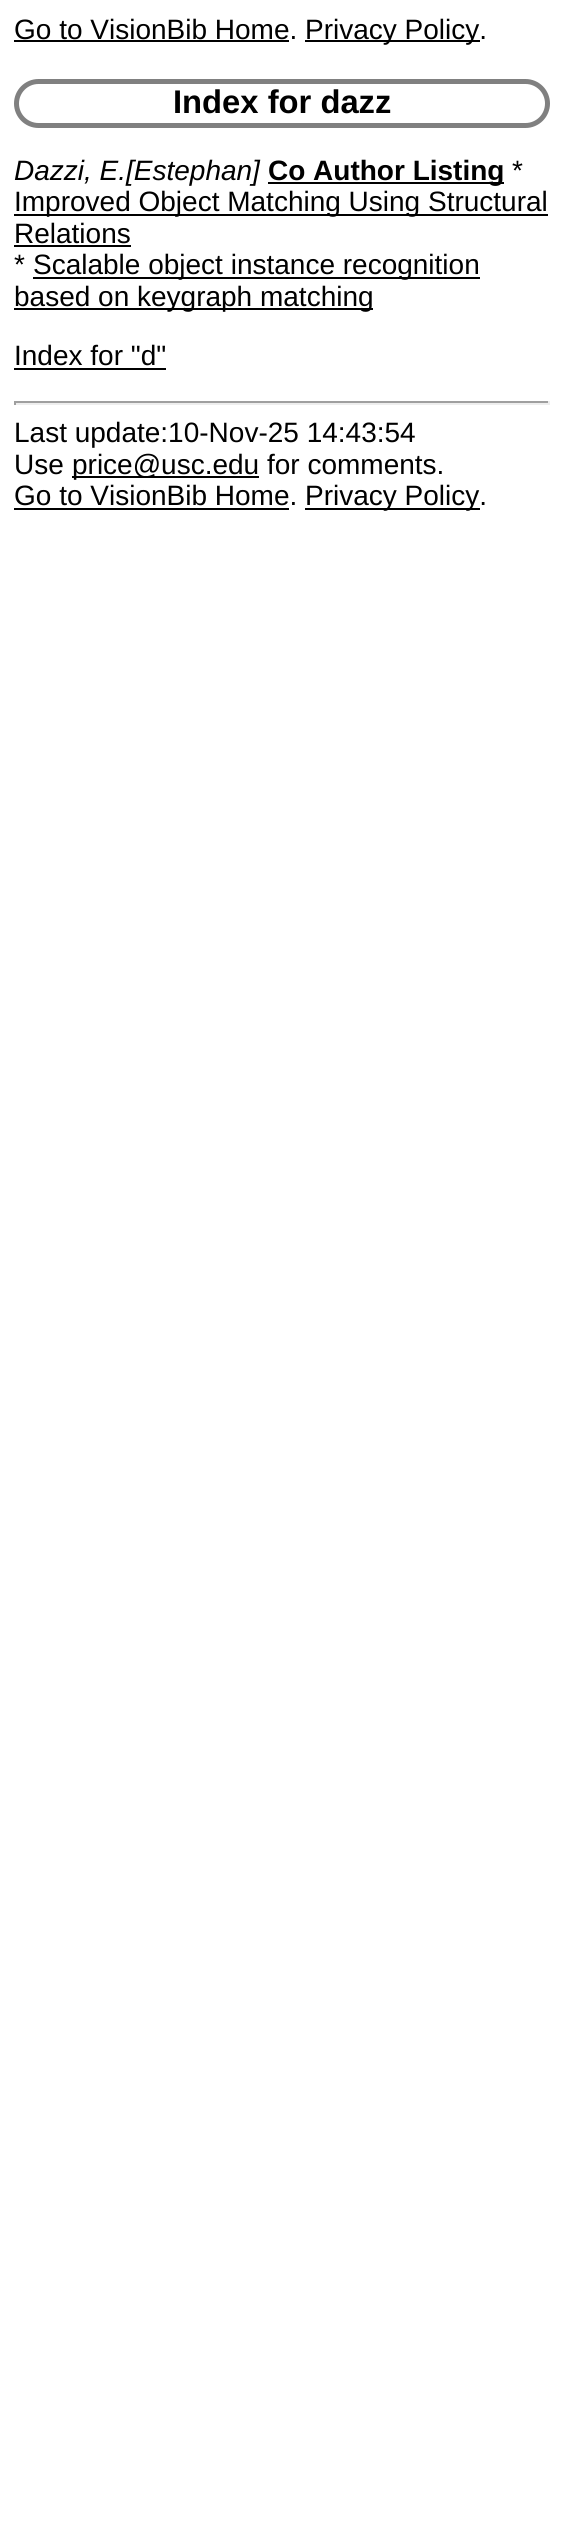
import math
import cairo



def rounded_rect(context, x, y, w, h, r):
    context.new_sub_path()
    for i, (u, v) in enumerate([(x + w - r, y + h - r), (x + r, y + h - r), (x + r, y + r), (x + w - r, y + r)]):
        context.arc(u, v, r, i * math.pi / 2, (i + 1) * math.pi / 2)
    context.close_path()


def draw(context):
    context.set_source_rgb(1, 1, 1)
    context.paint()
    context.set_source_rgb(0, 0, 0)
    context.rectangle(14, 40, 275, 2)
    context.fill()
    context.rectangle(305, 40, 175, 2)
    context.fill()
    rounded_rect(context, 16.5, 81.5, 531, 44, 22)
    context.set_source_rgb(128 / 255, 128 / 255, 128 / 255)
    context.set_line_width(5)
    context.stroke()
    context.set_source_rgb(0, 0, 0)
    context.rectangle(268, 182, 236, 2)
    context.fill()
    context.rectangle(14, 214, 534, 2)
    context.fill()
    context.rectangle(14, 245, 117, 2)
    context.fill()
    context.rectangle(33, 277, 447, 2)
    context.fill()
    context.rectangle(14, 308, 359, 2)
    context.fill()
    context.rectangle(14, 368, 152, 2)
    context.fill()
    context.set_source_rgb(159 / 255, 159 / 255, 159 / 255)
    context.rectangle(14, 401, 536, 2)
    context.fill()
    context.set_source_rgb(238 / 255, 238 / 255, 238 / 255)
    context.rectangle(548, 401, 2, 4)
    context.fill()
    context.rectangle(14, 403, 536, 2)
    context.fill()
    context.set_source_rgb(159 / 255, 159 / 255, 159 / 255)
    context.rectangle(14, 401, 2, 4)
    context.fill()
    context.set_source_rgb(0, 0, 0)
    context.rectangle(72, 476, 187, 2)
    context.fill()
    context.rectangle(14, 508, 275, 2)
    context.fill()
    context.rectangle(305, 508, 175, 2)
    context.fill()
    context.select_font_face("Liberation Sans")
    context.set_font_size(28)
    context.move_to(14, 39)
    context.show_text("Go to VisionBib Home.")
    context.move_to(305, 39)
    context.show_text("Privacy Policy.")
    context.select_font_face("Liberation Sans", cairo.FontSlant.NORMAL, cairo.FontWeight.BOLD)
    context.set_font_size(32.75)
    context.move_to(173, 113)
    context.show_text("Index for dazz")
    context.select_font_face("Liberation Sans", cairo.FontSlant.ITALIC)
    context.set_font_size(28)
    context.move_to(14, 180)
    context.show_text("Dazzi, E.[Estephan]")
    context.select_font_face("Liberation Sans", cairo.FontSlant.NORMAL, cairo.FontWeight.BOLD)
    context.move_to(268, 180)
    context.show_text("Co Author Listing")
    context.select_font_face("Liberation Sans")
    context.move_to(512, 180)
    context.show_text("*")
    context.move_to(14, 211)
    context.show_text("Improved Object Matching Using Structural")
    context.move_to(14, 243)
    context.show_text("Relations")
    context.move_to(14, 274)
    context.show_text("*")
    context.move_to(33, 274)
    context.show_text("Scalable object instance recognition")
    context.move_to(14, 306)
    context.show_text("based on keygraph matching")
    context.move_to(14, 365)
    context.show_text("Index for \"d\"")
    context.move_to(14, 442)
    context.show_text("Last update:10-Nov-25 14:43:54")
    context.move_to(14, 474)
    context.show_text("Use")
    context.move_to(72, 474)
    context.show_text("price@usc.edu for comments.")
    context.move_to(14, 505)
    context.show_text("Go to VisionBib Home.")
    context.move_to(305, 505)
    context.show_text("Privacy Policy.")


surface = cairo.ImageSurface(cairo.Format.RGB24, 562, 2543)
context = cairo.Context(surface)
options = cairo.FontOptions()
options.set_hint_metrics(cairo.HintMetrics.OFF)
options.set_hint_style(cairo.HintStyle.NONE)
context.set_font_options(options)
context.set_miter_limit(4)
draw(context)
surface.write_to_png("out.png")
